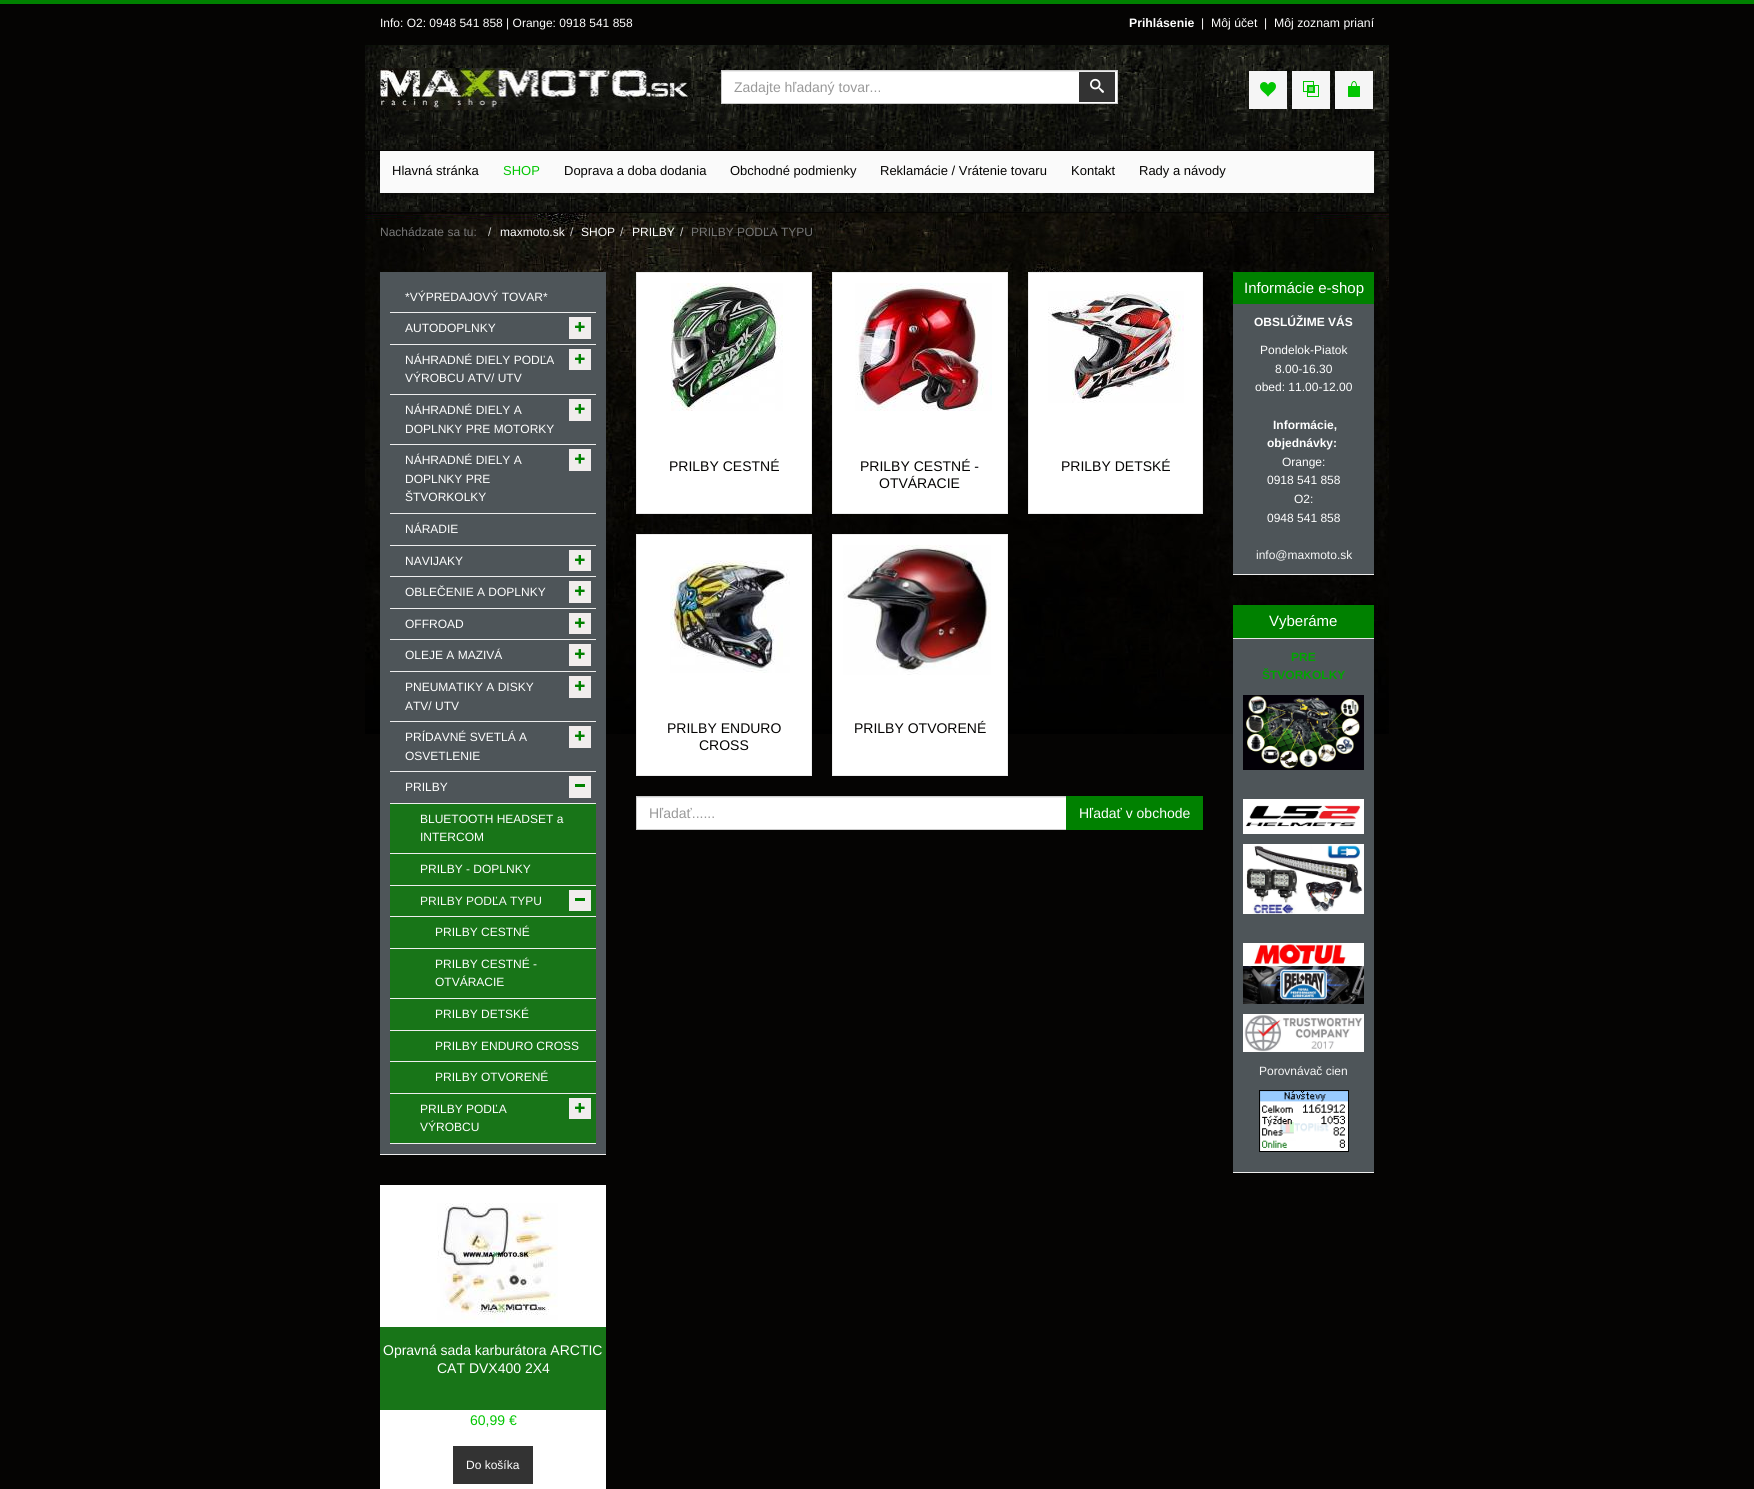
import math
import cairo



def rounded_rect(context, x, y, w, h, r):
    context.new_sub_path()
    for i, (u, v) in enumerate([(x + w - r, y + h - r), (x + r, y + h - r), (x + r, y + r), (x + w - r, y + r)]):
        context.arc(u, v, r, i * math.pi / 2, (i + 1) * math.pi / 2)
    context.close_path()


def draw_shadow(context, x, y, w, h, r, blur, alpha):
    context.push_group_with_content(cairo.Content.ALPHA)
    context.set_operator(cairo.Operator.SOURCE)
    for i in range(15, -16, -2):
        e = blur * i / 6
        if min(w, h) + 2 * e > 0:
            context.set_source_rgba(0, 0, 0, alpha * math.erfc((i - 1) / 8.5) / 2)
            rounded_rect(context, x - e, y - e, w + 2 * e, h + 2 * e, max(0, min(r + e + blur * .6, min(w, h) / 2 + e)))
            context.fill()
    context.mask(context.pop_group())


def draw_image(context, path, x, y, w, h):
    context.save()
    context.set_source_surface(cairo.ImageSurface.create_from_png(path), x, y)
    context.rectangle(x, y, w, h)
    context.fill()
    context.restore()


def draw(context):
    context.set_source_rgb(5 / 255, 4 / 255, 3 / 255)
    context.paint()
    context.set_source_rgb(0, 129 / 255, 0)
    context.rectangle(0, 0, 1754, 4)
    context.fill()
    draw_image(context, "images/1.png", 365, 45, 1024, 105)
    draw_image(context, "images/2.png", 380, 68, 311, 42)
    context.set_source_rgb(1, 1, 1)
    context.rectangle(722, 72, 395, 31)
    context.fill()
    context.set_source_rgb(236 / 255, 236 / 255, 236 / 255)
    context.rectangle(722, 71, 395, 1)
    context.fill()
    context.rectangle(721.5, 70.5, 396, 33)
    context.set_source_rgb(204 / 255, 204 / 255, 204 / 255)
    context.set_line_width(1)
    context.stroke()
    context.set_source_rgb(51 / 255, 51 / 255, 51 / 255)
    context.rectangle(1079, 72, 36, 30)
    context.fill()
    draw_image(context, "images/3.png", 1090, 78, 14, 15)
    context.set_source_rgb(245 / 255, 245 / 255, 245 / 255)
    context.rectangle(1249, 71, 38, 38)
    context.fill()
    draw_image(context, "images/4.png", 1260, 82, 16, 15)
    context.rectangle(1292, 71, 38, 38)
    context.fill()
    draw_image(context, "images/5.png", 1303, 81, 16, 16)
    context.rectangle(1335, 71, 38, 38)
    context.fill()
    draw_image(context, "images/6.png", 1348, 81, 12, 16)
    draw_image(context, "images/7.png", 365, 151, 1024, 61)
    context.set_source_rgb(250 / 255, 250 / 255, 250 / 255)
    context.rectangle(380, 151, 994, 42)
    context.fill()
    draw_image(context, "images/8.png", 365, 213, 1024, 521)
    context.set_source_rgb(78 / 255, 85 / 255, 89 / 255)
    context.rectangle(380, 272, 226, 882)
    context.fill()
    context.set_source_rgb(238 / 255, 238 / 255, 238 / 255)
    context.rectangle(380, 1154, 226, 1)
    context.fill()
    context.rectangle(390, 312, 206, 1)
    context.fill()
    context.rectangle(390, 344, 206, 1)
    context.fill()
    context.set_source_rgb(241 / 255, 237 / 255, 237 / 255)
    context.rectangle(569, 317, 22, 22)
    context.fill()
    draw_image(context, "images/9.png", 575, 322, 10, 10)
    context.set_source_rgb(238 / 255, 238 / 255, 238 / 255)
    context.rectangle(390, 394, 206, 1)
    context.fill()
    context.set_source_rgb(241 / 255, 237 / 255, 237 / 255)
    context.rectangle(569, 349, 22, 21)
    context.fill()
    draw_image(context, "images/9.png", 575, 354, 10, 10)
    context.set_source_rgb(238 / 255, 238 / 255, 238 / 255)
    context.rectangle(390, 444, 206, 1)
    context.fill()
    context.set_source_rgb(241 / 255, 237 / 255, 237 / 255)
    context.rectangle(569, 399, 22, 22)
    context.fill()
    draw_image(context, "images/9.png", 575, 404, 10, 10)
    context.set_source_rgb(238 / 255, 238 / 255, 238 / 255)
    context.rectangle(390, 513, 206, 1)
    context.fill()
    context.set_source_rgb(241 / 255, 237 / 255, 237 / 255)
    context.rectangle(569, 449, 22, 22)
    context.fill()
    draw_image(context, "images/9.png", 575, 454, 10, 10)
    context.set_source_rgb(238 / 255, 238 / 255, 238 / 255)
    context.rectangle(390, 545, 206, 1)
    context.fill()
    context.rectangle(390, 576, 206, 1)
    context.fill()
    context.set_source_rgb(241 / 255, 237 / 255, 237 / 255)
    context.rectangle(569, 550, 22, 21)
    context.fill()
    draw_image(context, "images/9.png", 575, 555, 10, 10)
    context.set_source_rgb(238 / 255, 238 / 255, 238 / 255)
    context.rectangle(390, 608, 206, 1)
    context.fill()
    context.set_source_rgb(241 / 255, 237 / 255, 237 / 255)
    context.rectangle(569, 581, 22, 22)
    context.fill()
    draw_image(context, "images/9.png", 575, 586, 10, 10)
    context.set_source_rgb(238 / 255, 238 / 255, 238 / 255)
    context.rectangle(390, 639, 206, 1)
    context.fill()
    context.set_source_rgb(241 / 255, 237 / 255, 237 / 255)
    context.rectangle(569, 613, 22, 21)
    context.fill()
    draw_image(context, "images/9.png", 575, 618, 10, 10)
    context.set_source_rgb(238 / 255, 238 / 255, 238 / 255)
    context.rectangle(390, 671, 206, 1)
    context.fill()
    context.set_source_rgb(241 / 255, 237 / 255, 237 / 255)
    context.rectangle(569, 644, 22, 22)
    context.fill()
    draw_image(context, "images/9.png", 575, 649, 10, 10)
    context.set_source_rgb(238 / 255, 238 / 255, 238 / 255)
    context.rectangle(390, 721, 206, 1)
    context.fill()
    context.set_source_rgb(241 / 255, 237 / 255, 237 / 255)
    context.rectangle(569, 676, 22, 22)
    context.fill()
    draw_image(context, "images/9.png", 575, 681, 10, 10)
    context.set_source_rgb(238 / 255, 238 / 255, 238 / 255)
    context.rectangle(390, 771, 206, 1)
    context.fill()
    context.set_source_rgb(241 / 255, 237 / 255, 237 / 255)
    context.rectangle(569, 726, 22, 22)
    context.fill()
    draw_image(context, "images/9.png", 575, 731, 10, 10)
    context.set_source_rgb(238 / 255, 238 / 255, 238 / 255)
    context.rectangle(390, 803, 206, 1)
    context.fill()
    context.set_source_rgb(241 / 255, 237 / 255, 237 / 255)
    context.rectangle(569, 776, 22, 22)
    context.fill()
    context.set_source_rgb(0, 129 / 255, 0)
    context.rectangle(575, 784, 10, 3)
    context.fill()
    context.set_source_rgb(24 / 255, 117 / 255, 24 / 255)
    context.rectangle(390, 804, 206, 339)
    context.fill()
    context.set_source_rgb(238 / 255, 238 / 255, 238 / 255)
    context.rectangle(390, 853, 206, 1)
    context.fill()
    context.rectangle(390, 885, 206, 1)
    context.fill()
    context.rectangle(390, 916, 206, 1)
    context.fill()
    context.set_source_rgb(241 / 255, 237 / 255, 237 / 255)
    context.rectangle(569, 890, 22, 21)
    context.fill()
    context.set_source_rgb(0, 129 / 255, 0)
    context.rectangle(575, 898, 10, 3)
    context.fill()
    context.set_source_rgb(238 / 255, 238 / 255, 238 / 255)
    context.rectangle(390, 948, 206, 1)
    context.fill()
    context.rectangle(390, 998, 206, 1)
    context.fill()
    context.rectangle(390, 1030, 206, 1)
    context.fill()
    context.rectangle(390, 1061, 206, 1)
    context.fill()
    context.rectangle(390, 1093, 206, 1)
    context.fill()
    context.rectangle(390, 1143, 206, 1)
    context.fill()
    context.set_source_rgb(241 / 255, 237 / 255, 237 / 255)
    context.rectangle(569, 1098, 22, 21)
    context.fill()
    draw_image(context, "images/9.png", 575, 1103, 10, 10)
    context.set_source_rgb(1, 1, 1)
    context.rectangle(380, 1185, 226, 304)
    context.fill()
    draw_image(context, "images/10.png", 437, 1203, 121, 120)
    context.set_source_rgb(24 / 255, 117 / 255, 24 / 255)
    context.rectangle(380, 1327, 226, 83)
    context.fill()
    context.set_source_rgb(51 / 255, 51 / 255, 51 / 255)
    context.rectangle(453, 1446, 80, 38)
    context.fill()
    context.set_source_rgb(0, 0, 0)
    draw_shadow(context, 636, 272, 176, 242, 0, 10, 0.1)
    context.set_source_rgb(1, 1, 1)
    context.rectangle(636.5, 272.5, 175, 241)
    context.fill_preserve()
    context.set_source_rgb(238 / 255, 238 / 255, 238 / 255)
    context.stroke()
    draw_image(context, "images/11.png", 671, 283, 112, 128)
    context.set_source_rgb(1, 1, 1)
    context.rectangle(832.5, 272.5, 175, 241)
    context.fill_preserve()
    context.set_source_rgb(238 / 255, 238 / 255, 238 / 255)
    context.stroke()
    draw_image(context, "images/12.png", 855, 283, 137, 128)
    context.set_source_rgb(1, 1, 1)
    context.rectangle(1028.5, 272.5, 174, 241)
    context.fill_preserve()
    context.set_source_rgb(238 / 255, 238 / 255, 238 / 255)
    context.stroke()
    draw_image(context, "images/13.png", 1048, 291, 136, 112)
    context.set_source_rgb(1, 1, 1)
    context.rectangle(636.5, 534.5, 175, 241)
    context.fill_preserve()
    context.set_source_rgb(238 / 255, 238 / 255, 238 / 255)
    context.stroke()
    draw_image(context, "images/14.png", 670, 560, 120, 113)
    context.set_source_rgb(1, 1, 1)
    context.rectangle(832.5, 534.5, 175, 241)
    context.fill_preserve()
    context.set_source_rgb(238 / 255, 238 / 255, 238 / 255)
    context.stroke()
    draw_image(context, "images/15.png", 843, 545, 148, 130)
    context.set_source_rgb(1, 1, 1)
    context.rectangle(637, 798, 429, 31)
    context.fill()
    context.set_source_rgb(236 / 255, 236 / 255, 236 / 255)
    context.rectangle(637, 797, 429, 1)
    context.fill()
    context.rectangle(636.5, 796.5, 430, 33)
    context.set_source_rgb(204 / 255, 204 / 255, 204 / 255)
    context.stroke()
    context.set_source_rgb(0, 129 / 255, 0)
    context.rectangle(1066, 796, 137, 34)
    context.fill()
    context.set_source_rgb(78 / 255, 85 / 255, 89 / 255)
    context.rectangle(1233, 304, 141, 270)
    context.fill()
    context.set_source_rgb(238 / 255, 238 / 255, 238 / 255)
    context.rectangle(1233, 574, 141, 1)
    context.fill()
    context.set_source_rgb(0, 129 / 255, 0)
    context.rectangle(1233, 272, 141, 32)
    context.fill()
    context.set_source_rgb(78 / 255, 85 / 255, 89 / 255)
    context.rectangle(1233, 639, 141, 533)
    context.fill()
    context.set_source_rgb(238 / 255, 238 / 255, 238 / 255)
    context.rectangle(1233, 1172, 141, 1)
    context.fill()
    context.set_source_rgb(0, 129 / 255, 0)
    context.rectangle(1233, 605, 141, 33)
    context.fill()
    context.set_source_rgb(230 / 255, 230 / 255, 230 / 255)
    context.rectangle(1233, 638, 141, 1)
    context.fill()
    draw_image(context, "images/16.png", 1243, 695, 121, 75)
    draw_image(context, "images/17.png", 1243, 799, 121, 35)
    draw_image(context, "images/18.png", 1243, 844, 121, 70)
    draw_image(context, "images/19.png", 1243, 943, 121, 23)
    draw_image(context, "images/20.png", 1243, 966, 121, 38)
    draw_image(context, "images/21.png", 1243, 1014, 121, 38)
    draw_image(context, "images/22.png", 1259, 1090, 90, 62)
    context.select_font_face("Liberation Sans")
    context.set_font_size(12)
    context.set_source_rgb(1, 1, 1)
    context.move_to(380, 27)
    context.show_text("Info: O2: 0948 541 858 | Orange: 0918 541 858")
    context.select_font_face("Liberation Sans", cairo.FontSlant.NORMAL, cairo.FontWeight.BOLD)
    context.set_font_size(12.25)
    context.move_to(1129, 27)
    context.show_text("Prihlásenie")
    context.select_font_face("Liberation Sans")
    context.set_font_size(12)
    context.move_to(1201, 27)
    context.show_text("|")
    context.set_font_size(12.25)
    context.move_to(1211, 27)
    context.show_text("Môj účet")
    context.set_font_size(12)
    context.move_to(1264, 27)
    context.show_text("|")
    context.set_font_size(12.25)
    context.move_to(1274, 27)
    context.show_text("Môj zoznam prianí")
    context.set_font_size(14)
    context.set_source_rgb(153 / 255, 153 / 255, 153 / 255)
    context.move_to(734, 92)
    context.show_text("Zadajte hľadaný tovar...")
    context.set_font_size(13)
    context.set_source_rgb(5 / 255, 4 / 255, 3 / 255)
    context.move_to(392, 175)
    context.show_text("Hlavná stránka")
    context.set_source_rgb(2 / 255, 198 / 255, 2 / 255)
    context.move_to(503, 175)
    context.show_text("SHOP")
    context.set_source_rgb(5 / 255, 4 / 255, 3 / 255)
    context.move_to(564, 175)
    context.show_text("Doprava a doba dodania")
    context.move_to(730, 175)
    context.show_text("Obchodné podmienky")
    context.move_to(880, 175)
    context.show_text("Reklamácie / Vrátenie tovaru")
    context.move_to(1071, 175)
    context.show_text("Kontakt")
    context.move_to(1139, 175)
    context.show_text("Rady a návody")
    context.set_font_size(12)
    context.set_source_rgb(119 / 255, 119 / 255, 119 / 255)
    context.move_to(380, 236)
    context.show_text("Nachádzate sa tu:")
    context.set_source_rgb(204 / 255, 204 / 255, 204 / 255)
    context.move_to(488, 236)
    context.show_text("/")
    context.set_source_rgb(1, 1, 1)
    context.move_to(500, 236)
    context.show_text("maxmoto.sk")
    context.set_source_rgb(204 / 255, 204 / 255, 204 / 255)
    context.move_to(570, 236)
    context.show_text("/")
    context.set_source_rgb(1, 1, 1)
    context.move_to(581, 236)
    context.show_text("SHOP")
    context.set_source_rgb(204 / 255, 204 / 255, 204 / 255)
    context.move_to(620, 236)
    context.show_text("/")
    context.set_source_rgb(1, 1, 1)
    context.move_to(632, 236)
    context.show_text("PRILBY")
    context.set_source_rgb(204 / 255, 204 / 255, 204 / 255)
    context.move_to(680, 236)
    context.show_text("/")
    context.set_source_rgb(119 / 255, 119 / 255, 119 / 255)
    context.move_to(691, 236)
    context.show_text("PRILBY PODĽA TYPU")
    context.set_source_rgb(1, 1, 1)
    context.move_to(405, 301)
    context.show_text("*VÝPREDAJOVÝ TOVAR*")
    context.move_to(405, 332)
    context.show_text("AUTODOPLNKY")
    context.move_to(405, 364)
    context.show_text("NÁHRADNÉ DIELY PODĽA")
    context.move_to(405, 382)
    context.show_text("VÝROBCU ATV/ UTV")
    context.move_to(405, 414)
    context.show_text("NÁHRADNÉ DIELY A")
    context.move_to(405, 433)
    context.show_text("DOPLNKY PRE MOTORKY")
    context.move_to(405, 464)
    context.show_text("NÁHRADNÉ DIELY A")
    context.move_to(405, 483)
    context.show_text("DOPLNKY PRE")
    context.move_to(405, 501)
    context.show_text("ŠTVORKOLKY")
    context.move_to(405, 533)
    context.show_text("NÁRADIE")
    context.move_to(405, 565)
    context.show_text("NAVIJAKY")
    context.move_to(405, 596)
    context.show_text("OBLEČENIE A DOPLNKY")
    context.move_to(405, 628)
    context.show_text("OFFROAD")
    context.move_to(405, 659)
    context.show_text("OLEJE A MAZIVÁ")
    context.move_to(405, 691)
    context.show_text("PNEUMATIKY A DISKY")
    context.move_to(405, 710)
    context.show_text("ATV/ UTV")
    context.move_to(405, 741)
    context.show_text("PRÍDAVNÉ SVETLÁ A")
    context.move_to(405, 760)
    context.show_text("OSVETLENIE")
    context.move_to(405, 791)
    context.show_text("PRILBY")
    context.move_to(420, 823)
    context.show_text("BLUETOOTH HEADSET a")
    context.move_to(420, 841)
    context.show_text("INTERCOM")
    context.move_to(420, 873)
    context.show_text("PRILBY - DOPLNKY")
    context.set_source_rgb(247 / 255, 247 / 255, 247 / 255)
    context.move_to(420, 905)
    context.show_text("PRILBY PODĽA TYPU")
    context.set_source_rgb(1, 1, 1)
    context.move_to(435, 936)
    context.show_text("PRILBY CESTNÉ")
    context.move_to(435, 968)
    context.show_text("PRILBY CESTNÉ -")
    context.move_to(435, 986)
    context.show_text("OTVÁRACIE")
    context.move_to(435, 1018)
    context.show_text("PRILBY DETSKÉ")
    context.move_to(435, 1050)
    context.show_text("PRILBY ENDURO CROSS")
    context.move_to(435, 1081)
    context.show_text("PRILBY OTVORENÉ")
    context.move_to(420, 1113)
    context.show_text("PRILBY PODĽA")
    context.move_to(420, 1131)
    context.show_text("VÝROBCU")
    context.set_font_size(14)
    context.move_to(383, 1355)
    context.show_text("Opravná sada karburátora ARCTIC")
    context.move_to(437, 1373)
    context.show_text("CAT DVX400 2X4")
    context.set_source_rgb(2 / 255, 198 / 255, 2 / 255)
    context.move_to(470, 1425)
    context.show_text("60,99 €")
    context.set_font_size(12)
    context.set_source_rgb(1, 1, 1)
    context.move_to(466, 1469)
    context.show_text("Do košíka")
    context.set_font_size(14)
    context.set_source_rgb(5 / 255, 4 / 255, 3 / 255)
    context.move_to(669, 471)
    context.show_text("PRILBY CESTNÉ")
    context.move_to(860, 471)
    context.show_text("PRILBY CESTNÉ -")
    context.move_to(879, 488)
    context.show_text("OTVÁRACIE")
    context.move_to(1061, 471)
    context.show_text("PRILBY DETSKÉ")
    context.move_to(667, 733)
    context.show_text("PRILBY ENDURO")
    context.move_to(699, 750)
    context.show_text("CROSS")
    context.move_to(854, 733)
    context.show_text("PRILBY OTVORENÉ")
    context.set_source_rgb(153 / 255, 153 / 255, 153 / 255)
    context.move_to(649, 818)
    context.show_text("Hľadať......")
    context.set_source_rgb(1, 1, 1)
    context.move_to(1079, 818)
    context.show_text("Hľadať v obchode")
    context.set_font_size(15)
    context.move_to(1244, 293)
    context.show_text("Informácie e-shop")
    context.select_font_face("Liberation Sans", cairo.FontSlant.NORMAL, cairo.FontWeight.BOLD)
    context.set_font_size(12)
    context.move_to(1254, 326)
    context.show_text("OBSLÚŽIME VÁS")
    context.select_font_face("Liberation Sans")
    context.move_to(1260, 354)
    context.show_text("Pondelok-Piatok")
    context.move_to(1275, 373)
    context.show_text("8.00-16.30")
    context.move_to(1255, 391)
    context.show_text("obed: 11.00-12.00")
    context.select_font_face("Liberation Sans", cairo.FontSlant.NORMAL, cairo.FontWeight.BOLD)
    context.move_to(1273, 429)
    context.show_text("Informácie,")
    context.move_to(1267, 447)
    context.show_text("objednávky:")
    context.select_font_face("Liberation Sans")
    context.move_to(1282, 466)
    context.show_text("Orange:")
    context.move_to(1267, 484)
    context.show_text("0918 541 858")
    context.move_to(1294, 503)
    context.show_text("O2:")
    context.move_to(1267, 522)
    context.show_text("0948 541 858")
    context.set_source_rgb(247 / 255, 247 / 255, 247 / 255)
    context.move_to(1256, 559)
    context.show_text("info@maxmoto.sk")
    context.set_font_size(15)
    context.set_source_rgb(1, 1, 1)
    context.move_to(1269, 626)
    context.show_text("Vyberáme")
    context.select_font_face("Liberation Sans", cairo.FontSlant.NORMAL, cairo.FontWeight.BOLD)
    context.set_font_size(12)
    context.set_source_rgb(0, 163 / 255, 0)
    context.move_to(1291, 661)
    context.show_text("PRE")
    context.move_to(1262, 679)
    context.show_text("ŠTVORKOLKY")
    context.select_font_face("Liberation Sans")
    context.set_source_rgb(247 / 255, 247 / 255, 247 / 255)
    context.move_to(1259, 1075)
    context.show_text("Porovnávač cien")


surface = cairo.ImageSurface(cairo.Format.RGB24, 1754, 1489)
context = cairo.Context(surface)
options = cairo.FontOptions()
options.set_hint_metrics(cairo.HintMetrics.OFF)
options.set_hint_style(cairo.HintStyle.NONE)
context.set_font_options(options)
context.set_miter_limit(4)
draw(context)
surface.write_to_png("out.png")
